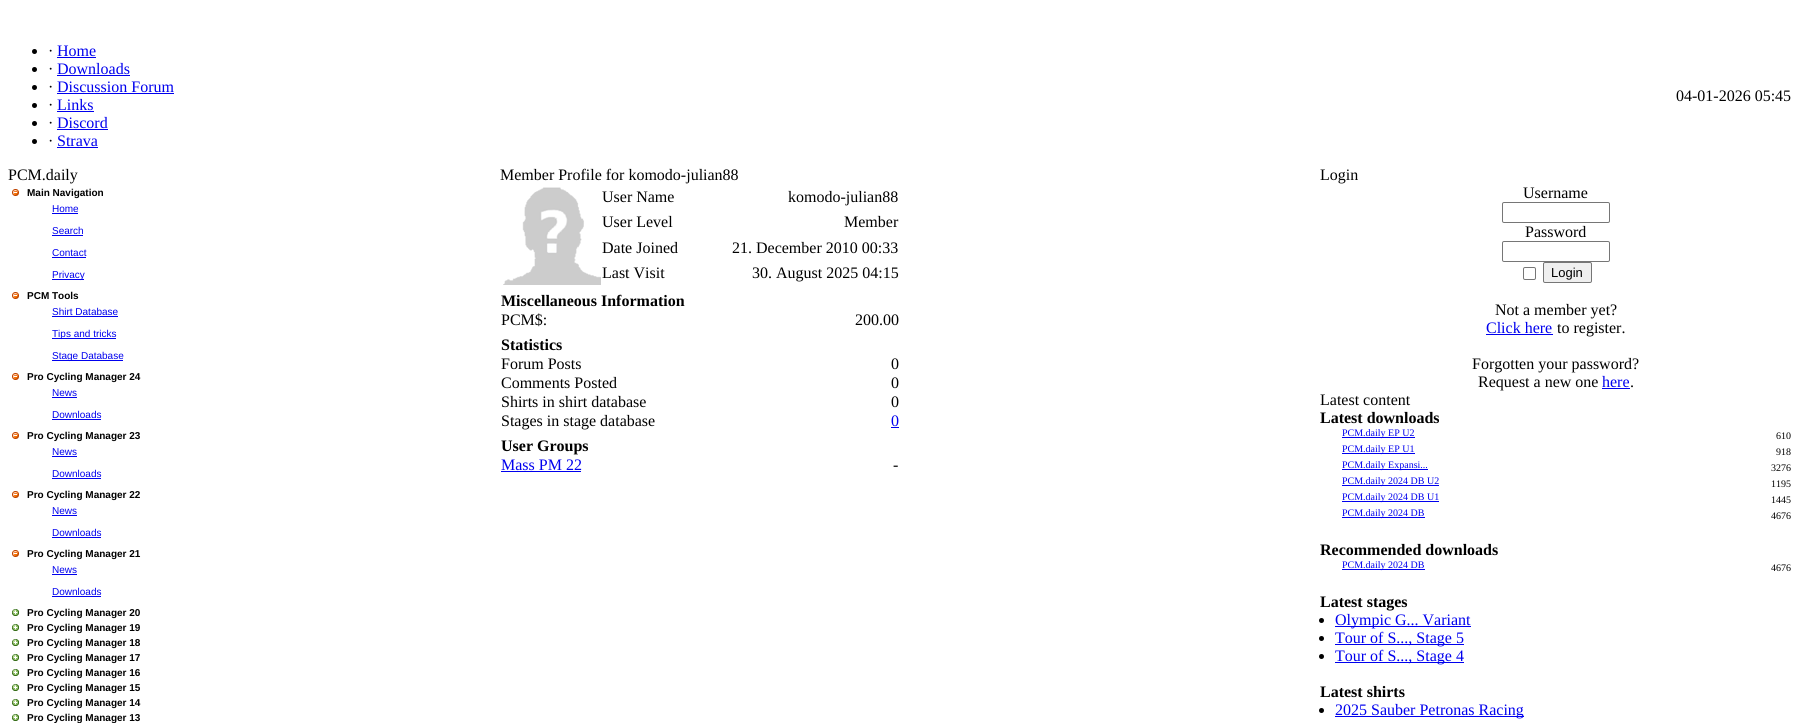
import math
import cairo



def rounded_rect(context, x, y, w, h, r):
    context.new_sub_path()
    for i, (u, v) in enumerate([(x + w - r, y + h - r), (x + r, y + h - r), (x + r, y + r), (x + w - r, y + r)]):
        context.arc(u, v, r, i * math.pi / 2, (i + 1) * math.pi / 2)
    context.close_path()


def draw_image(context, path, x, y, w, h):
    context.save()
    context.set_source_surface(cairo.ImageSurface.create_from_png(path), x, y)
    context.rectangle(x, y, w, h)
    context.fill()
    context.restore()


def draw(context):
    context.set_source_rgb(1, 1, 1)
    context.paint()
    context.set_source_rgb(0, 0, 0)
    context.arc(34.5, 51.5, 2.5, 0, 2 * math.pi)
    context.fill()
    context.set_source_rgb(0, 0, 238 / 255)
    context.rectangle(57, 57, 39, 1)
    context.fill()
    context.set_source_rgb(0, 0, 0)
    context.arc(34.5, 69.5, 2.5, 0, 2 * math.pi)
    context.fill()
    context.set_source_rgb(0, 0, 238 / 255)
    context.rectangle(57, 75, 73, 1)
    context.fill()
    context.set_source_rgb(0, 0, 0)
    context.arc(34.5, 87.5, 2.5, 0, 2 * math.pi)
    context.fill()
    context.set_source_rgb(0, 0, 238 / 255)
    context.rectangle(57, 93, 117, 1)
    context.fill()
    context.set_source_rgb(0, 0, 0)
    context.arc(34.5, 105.5, 2.5, 0, 2 * math.pi)
    context.fill()
    context.set_source_rgb(0, 0, 238 / 255)
    context.rectangle(57, 111, 37, 1)
    context.fill()
    context.set_source_rgb(0, 0, 0)
    context.arc(34.5, 123.5, 2.5, 0, 2 * math.pi)
    context.fill()
    context.set_source_rgb(0, 0, 238 / 255)
    context.rectangle(57, 129, 51, 1)
    context.fill()
    context.set_source_rgb(0, 0, 0)
    context.arc(34.5, 141.5, 2.5, 0, 2 * math.pi)
    context.fill()
    context.set_source_rgb(0, 0, 238 / 255)
    context.rectangle(57, 147, 41, 1)
    context.fill()
    draw_image(context, "images/1.png", 12, 189, 7, 7)
    context.rectangle(52, 213, 26, 1)
    context.fill()
    context.rectangle(52, 235, 31, 1)
    context.fill()
    context.rectangle(52, 257, 34, 1)
    context.fill()
    context.rectangle(52, 279, 32, 1)
    context.fill()
    draw_image(context, "images/1.png", 12, 292, 7, 7)
    context.rectangle(52, 316, 66, 1)
    context.fill()
    context.rectangle(52, 338, 64, 1)
    context.fill()
    context.rectangle(52, 360, 71, 1)
    context.fill()
    draw_image(context, "images/1.png", 12, 373, 7, 7)
    context.rectangle(52, 397, 25, 1)
    context.fill()
    context.rectangle(52, 419, 49, 1)
    context.fill()
    draw_image(context, "images/1.png", 12, 432, 7, 7)
    context.rectangle(52, 456, 25, 1)
    context.fill()
    context.rectangle(52, 478, 49, 1)
    context.fill()
    draw_image(context, "images/1.png", 12, 491, 7, 7)
    context.rectangle(52, 515, 25, 1)
    context.fill()
    context.rectangle(52, 537, 49, 1)
    context.fill()
    draw_image(context, "images/1.png", 12, 550, 7, 7)
    context.rectangle(52, 574, 25, 1)
    context.fill()
    context.rectangle(52, 596, 49, 1)
    context.fill()
    draw_image(context, "images/2.png", 12, 609, 7, 7)
    draw_image(context, "images/2.png", 12, 624, 7, 7)
    draw_image(context, "images/2.png", 12, 639, 7, 7)
    draw_image(context, "images/2.png", 12, 654, 7, 7)
    draw_image(context, "images/2.png", 12, 669, 7, 7)
    draw_image(context, "images/2.png", 12, 684, 7, 7)
    draw_image(context, "images/2.png", 12, 699, 7, 7)
    draw_image(context, "images/2.png", 12, 714, 7, 7)
    draw_image(context, "images/3.png", 503, 187, 98, 98)
    context.rectangle(891, 427, 8, 1)
    context.fill()
    context.rectangle(501, 471, 80, 1)
    context.fill()
    rounded_rect(context, 1502.5, 202.5, 107, 20, 1.5)
    context.set_source_rgb(118 / 255, 118 / 255, 118 / 255)
    context.set_line_width(1)
    context.stroke()
    rounded_rect(context, 1502.5, 241.5, 107, 20, 1.5)
    context.stroke()
    rounded_rect(context, 1523.5, 267.5, 12, 12, 1.5)
    context.stroke()
    context.set_source_rgb(239 / 255, 239 / 255, 239 / 255)
    rounded_rect(context, 1543.5, 262.5, 48, 20, 1.5)
    context.fill_preserve()
    context.set_source_rgb(118 / 255, 118 / 255, 118 / 255)
    context.stroke()
    context.set_source_rgb(0, 0, 238 / 255)
    context.rectangle(1486, 334, 67, 1)
    context.fill()
    context.rectangle(1602, 388, 28, 1)
    context.fill()
    context.rectangle(1342, 437, 73, 1)
    context.fill()
    context.rectangle(1342, 453, 73, 1)
    context.fill()
    context.rectangle(1342, 469, 86, 1)
    context.fill()
    context.rectangle(1342, 485, 97, 1)
    context.fill()
    context.rectangle(1342, 501, 97, 1)
    context.fill()
    context.rectangle(1342, 517, 83, 1)
    context.fill()
    context.rectangle(1342, 569, 83, 1)
    context.fill()
    context.set_source_rgb(0, 0, 0)
    context.arc(1321.5, 620.5, 2.5, 0, 2 * math.pi)
    context.fill()
    context.set_source_rgb(0, 0, 238 / 255)
    context.rectangle(1335, 626, 136, 1)
    context.fill()
    context.set_source_rgb(0, 0, 0)
    context.arc(1321.5, 638.5, 2.5, 0, 2 * math.pi)
    context.fill()
    context.set_source_rgb(0, 0, 238 / 255)
    context.rectangle(1335, 644, 129, 1)
    context.fill()
    context.set_source_rgb(0, 0, 0)
    context.arc(1321.5, 656.5, 2.5, 0, 2 * math.pi)
    context.fill()
    context.set_source_rgb(0, 0, 238 / 255)
    context.rectangle(1335, 662, 129, 1)
    context.fill()
    context.set_source_rgb(0, 0, 0)
    context.arc(1321.5, 710.5, 2.5, 0, 2 * math.pi)
    context.fill()
    context.set_source_rgb(0, 0, 238 / 255)
    context.rectangle(1335, 716, 189, 1)
    context.fill()
    context.select_font_face("Liberation Serif")
    context.set_font_size(16)
    context.set_source_rgb(0, 0, 0)
    context.move_to(48, 56)
    context.show_text("·")
    context.set_source_rgb(0, 0, 238 / 255)
    context.move_to(57, 56)
    context.show_text("Home")
    context.set_source_rgb(0, 0, 0)
    context.move_to(48, 74)
    context.show_text("·")
    context.set_source_rgb(0, 0, 238 / 255)
    context.move_to(57, 74)
    context.show_text("Downloads")
    context.set_source_rgb(0, 0, 0)
    context.move_to(48, 92)
    context.show_text("·")
    context.set_source_rgb(0, 0, 238 / 255)
    context.move_to(57, 92)
    context.show_text("Discussion Forum")
    context.set_source_rgb(0, 0, 0)
    context.move_to(48, 110)
    context.show_text("·")
    context.set_source_rgb(0, 0, 238 / 255)
    context.move_to(57, 110)
    context.show_text("Links")
    context.set_source_rgb(0, 0, 0)
    context.move_to(48, 128)
    context.show_text("·")
    context.set_source_rgb(0, 0, 238 / 255)
    context.move_to(57, 128)
    context.show_text("Discord")
    context.set_source_rgb(0, 0, 0)
    context.move_to(48, 146)
    context.show_text("·")
    context.set_source_rgb(0, 0, 238 / 255)
    context.move_to(57, 146)
    context.show_text("Strava")
    context.set_source_rgb(0, 0, 0)
    context.move_to(1676, 101)
    context.show_text("04-01-2026 05:45")
    context.move_to(8, 180)
    context.show_text("PCM.daily")
    context.select_font_face("Liberation Sans", cairo.FontSlant.NORMAL, cairo.FontWeight.BOLD)
    context.set_font_size(10)
    context.move_to(27, 196)
    context.show_text("Main Navigation")
    context.select_font_face("Liberation Sans")
    context.set_source_rgb(0, 0, 238 / 255)
    context.move_to(52, 212)
    context.show_text("Home")
    context.move_to(52, 234)
    context.show_text("Search")
    context.move_to(52, 256)
    context.show_text("Contact")
    context.move_to(52, 278)
    context.show_text("Privacy")
    context.select_font_face("Liberation Sans", cairo.FontSlant.NORMAL, cairo.FontWeight.BOLD)
    context.set_source_rgb(0, 0, 0)
    context.move_to(27, 299)
    context.show_text("PCM Tools")
    context.select_font_face("Liberation Sans")
    context.set_source_rgb(0, 0, 238 / 255)
    context.move_to(52, 315)
    context.show_text("Shirt Database")
    context.move_to(52, 337)
    context.show_text("Tips and tricks")
    context.move_to(52, 359)
    context.show_text("Stage Database")
    context.select_font_face("Liberation Sans", cairo.FontSlant.NORMAL, cairo.FontWeight.BOLD)
    context.set_source_rgb(0, 0, 0)
    context.move_to(27, 380)
    context.show_text("Pro Cycling Manager 24")
    context.select_font_face("Liberation Sans")
    context.set_source_rgb(0, 0, 238 / 255)
    context.move_to(52, 396)
    context.show_text("News")
    context.move_to(52, 418)
    context.show_text("Downloads")
    context.select_font_face("Liberation Sans", cairo.FontSlant.NORMAL, cairo.FontWeight.BOLD)
    context.set_source_rgb(0, 0, 0)
    context.move_to(27, 439)
    context.show_text("Pro Cycling Manager 23")
    context.select_font_face("Liberation Sans")
    context.set_source_rgb(0, 0, 238 / 255)
    context.move_to(52, 455)
    context.show_text("News")
    context.move_to(52, 477)
    context.show_text("Downloads")
    context.select_font_face("Liberation Sans", cairo.FontSlant.NORMAL, cairo.FontWeight.BOLD)
    context.set_source_rgb(0, 0, 0)
    context.move_to(27, 498)
    context.show_text("Pro Cycling Manager 22")
    context.select_font_face("Liberation Sans")
    context.set_source_rgb(0, 0, 238 / 255)
    context.move_to(52, 514)
    context.show_text("News")
    context.move_to(52, 536)
    context.show_text("Downloads")
    context.select_font_face("Liberation Sans", cairo.FontSlant.NORMAL, cairo.FontWeight.BOLD)
    context.set_source_rgb(0, 0, 0)
    context.move_to(27, 557)
    context.show_text("Pro Cycling Manager 21")
    context.select_font_face("Liberation Sans")
    context.set_source_rgb(0, 0, 238 / 255)
    context.move_to(52, 573)
    context.show_text("News")
    context.move_to(52, 595)
    context.show_text("Downloads")
    context.select_font_face("Liberation Sans", cairo.FontSlant.NORMAL, cairo.FontWeight.BOLD)
    context.set_source_rgb(0, 0, 0)
    context.move_to(27, 616)
    context.show_text("Pro Cycling Manager 20")
    context.move_to(27, 631)
    context.show_text("Pro Cycling Manager 19")
    context.move_to(27, 646)
    context.show_text("Pro Cycling Manager 18")
    context.move_to(27, 661)
    context.show_text("Pro Cycling Manager 17")
    context.move_to(27, 676)
    context.show_text("Pro Cycling Manager 16")
    context.move_to(27, 691)
    context.show_text("Pro Cycling Manager 15")
    context.move_to(27, 706)
    context.show_text("Pro Cycling Manager 14")
    context.move_to(27, 721)
    context.show_text("Pro Cycling Manager 13")
    context.select_font_face("Liberation Serif")
    context.set_font_size(16)
    context.move_to(500, 180)
    context.show_text("Member Profile for komodo-julian88")
    context.move_to(602, 202)
    context.show_text("User Name")
    context.move_to(788, 202)
    context.show_text("komodo-julian88")
    context.move_to(602, 227)
    context.show_text("User Level")
    context.move_to(844, 227)
    context.show_text("Member")
    context.move_to(602, 253)
    context.show_text("Date Joined")
    context.move_to(732, 253)
    context.show_text("21. December 2010 00:33")
    context.move_to(602, 278)
    context.show_text("Last Visit")
    context.move_to(752, 278)
    context.show_text("30. August 2025 04:15")
    context.select_font_face("Liberation Serif", cairo.FontSlant.NORMAL, cairo.FontWeight.BOLD)
    context.move_to(501, 306)
    context.show_text("Miscellaneous Information")
    context.select_font_face("Liberation Serif")
    context.move_to(501, 325)
    context.show_text("PCM$:")
    context.move_to(855, 325)
    context.show_text("200.00")
    context.select_font_face("Liberation Serif", cairo.FontSlant.NORMAL, cairo.FontWeight.BOLD)
    context.move_to(501, 350)
    context.show_text("Statistics")
    context.select_font_face("Liberation Serif")
    context.move_to(501, 369)
    context.show_text("Forum Posts")
    context.move_to(891, 369)
    context.show_text("0")
    context.move_to(501, 388)
    context.show_text("Comments Posted")
    context.move_to(891, 388)
    context.show_text("0")
    context.move_to(501, 407)
    context.show_text("Shirts in shirt database")
    context.move_to(891, 407)
    context.show_text("0")
    context.move_to(501, 426)
    context.show_text("Stages in stage database")
    context.set_source_rgb(0, 0, 238 / 255)
    context.move_to(891, 426)
    context.show_text("0")
    context.select_font_face("Liberation Serif", cairo.FontSlant.NORMAL, cairo.FontWeight.BOLD)
    context.set_source_rgb(0, 0, 0)
    context.move_to(501, 451)
    context.show_text("User Groups")
    context.select_font_face("Liberation Serif")
    context.set_source_rgb(0, 0, 238 / 255)
    context.move_to(501, 470)
    context.show_text("Mass PM 22")
    context.set_source_rgb(0, 0, 0)
    context.move_to(893, 470)
    context.show_text("-")
    context.move_to(1320, 180)
    context.show_text("Login")
    context.move_to(1523, 198)
    context.show_text("Username")
    context.move_to(1525, 237)
    context.show_text("Password")
    context.select_font_face("Liberation Sans")
    context.set_font_size(13)
    context.move_to(1551, 277)
    context.show_text("Login")
    context.select_font_face("Liberation Serif")
    context.set_font_size(16)
    context.move_to(1495, 315)
    context.show_text("Not a member yet?")
    context.set_source_rgb(0, 0, 238 / 255)
    context.move_to(1486, 333)
    context.show_text("Click here")
    context.set_source_rgb(0, 0, 0)
    context.move_to(1557, 333)
    context.show_text("to register.")
    context.move_to(1472, 369)
    context.show_text("Forgotten your password?")
    context.move_to(1478, 387)
    context.show_text("Request a new one")
    context.set_source_rgb(0, 0, 238 / 255)
    context.move_to(1602, 387)
    context.show_text("here")
    context.set_source_rgb(0, 0, 0)
    context.move_to(1630, 387)
    context.show_text(".")
    context.move_to(1320, 405)
    context.show_text("Latest content")
    context.select_font_face("Liberation Serif", cairo.FontSlant.NORMAL, cairo.FontWeight.BOLD)
    context.move_to(1320, 423)
    context.show_text("Latest downloads")
    context.select_font_face("Liberation Serif")
    context.set_font_size(10)
    context.set_source_rgb(0, 0, 238 / 255)
    context.move_to(1342, 436)
    context.show_text("PCM.daily EP U2")
    context.set_source_rgb(0, 0, 0)
    context.move_to(1776, 439)
    context.show_text("610")
    context.set_source_rgb(0, 0, 238 / 255)
    context.move_to(1342, 452)
    context.show_text("PCM.daily EP U1")
    context.set_source_rgb(0, 0, 0)
    context.move_to(1776, 455)
    context.show_text("918")
    context.set_source_rgb(0, 0, 238 / 255)
    context.move_to(1342, 468)
    context.show_text("PCM.daily Expansi...")
    context.set_source_rgb(0, 0, 0)
    context.move_to(1771, 471)
    context.show_text("3276")
    context.set_source_rgb(0, 0, 238 / 255)
    context.move_to(1342, 484)
    context.show_text("PCM.daily 2024 DB U2")
    context.set_source_rgb(0, 0, 0)
    context.move_to(1771, 487)
    context.show_text("1195")
    context.set_source_rgb(0, 0, 238 / 255)
    context.move_to(1342, 500)
    context.show_text("PCM.daily 2024 DB U1")
    context.set_source_rgb(0, 0, 0)
    context.move_to(1771, 503)
    context.show_text("1445")
    context.set_source_rgb(0, 0, 238 / 255)
    context.move_to(1342, 516)
    context.show_text("PCM.daily 2024 DB")
    context.set_source_rgb(0, 0, 0)
    context.move_to(1771, 519)
    context.show_text("4676")
    context.select_font_face("Liberation Serif", cairo.FontSlant.NORMAL, cairo.FontWeight.BOLD)
    context.set_font_size(16)
    context.move_to(1320, 555)
    context.show_text("Recommended downloads")
    context.select_font_face("Liberation Serif")
    context.set_font_size(10)
    context.set_source_rgb(0, 0, 238 / 255)
    context.move_to(1342, 568)
    context.show_text("PCM.daily 2024 DB")
    context.set_source_rgb(0, 0, 0)
    context.move_to(1771, 571)
    context.show_text("4676")
    context.select_font_face("Liberation Serif", cairo.FontSlant.NORMAL, cairo.FontWeight.BOLD)
    context.set_font_size(16)
    context.move_to(1320, 607)
    context.show_text("Latest stages")
    context.select_font_face("Liberation Serif")
    context.set_source_rgb(0, 0, 238 / 255)
    context.move_to(1335, 625)
    context.show_text("Olympic G... Variant")
    context.move_to(1335, 643)
    context.show_text("Tour of S..., Stage 5")
    context.move_to(1335, 661)
    context.show_text("Tour of S..., Stage 4")
    context.select_font_face("Liberation Serif", cairo.FontSlant.NORMAL, cairo.FontWeight.BOLD)
    context.set_source_rgb(0, 0, 0)
    context.move_to(1320, 697)
    context.show_text("Latest shirts")
    context.select_font_face("Liberation Serif")
    context.set_source_rgb(0, 0, 238 / 255)
    context.move_to(1335, 715)
    context.show_text("2025 Sauber Petronas Racing")


surface = cairo.ImageSurface(cairo.Format.RGB24, 1799, 723)
context = cairo.Context(surface)
options = cairo.FontOptions()
options.set_hint_metrics(cairo.HintMetrics.OFF)
options.set_hint_style(cairo.HintStyle.NONE)
context.set_font_options(options)
context.set_miter_limit(4)
draw(context)
surface.write_to_png("out.png")
